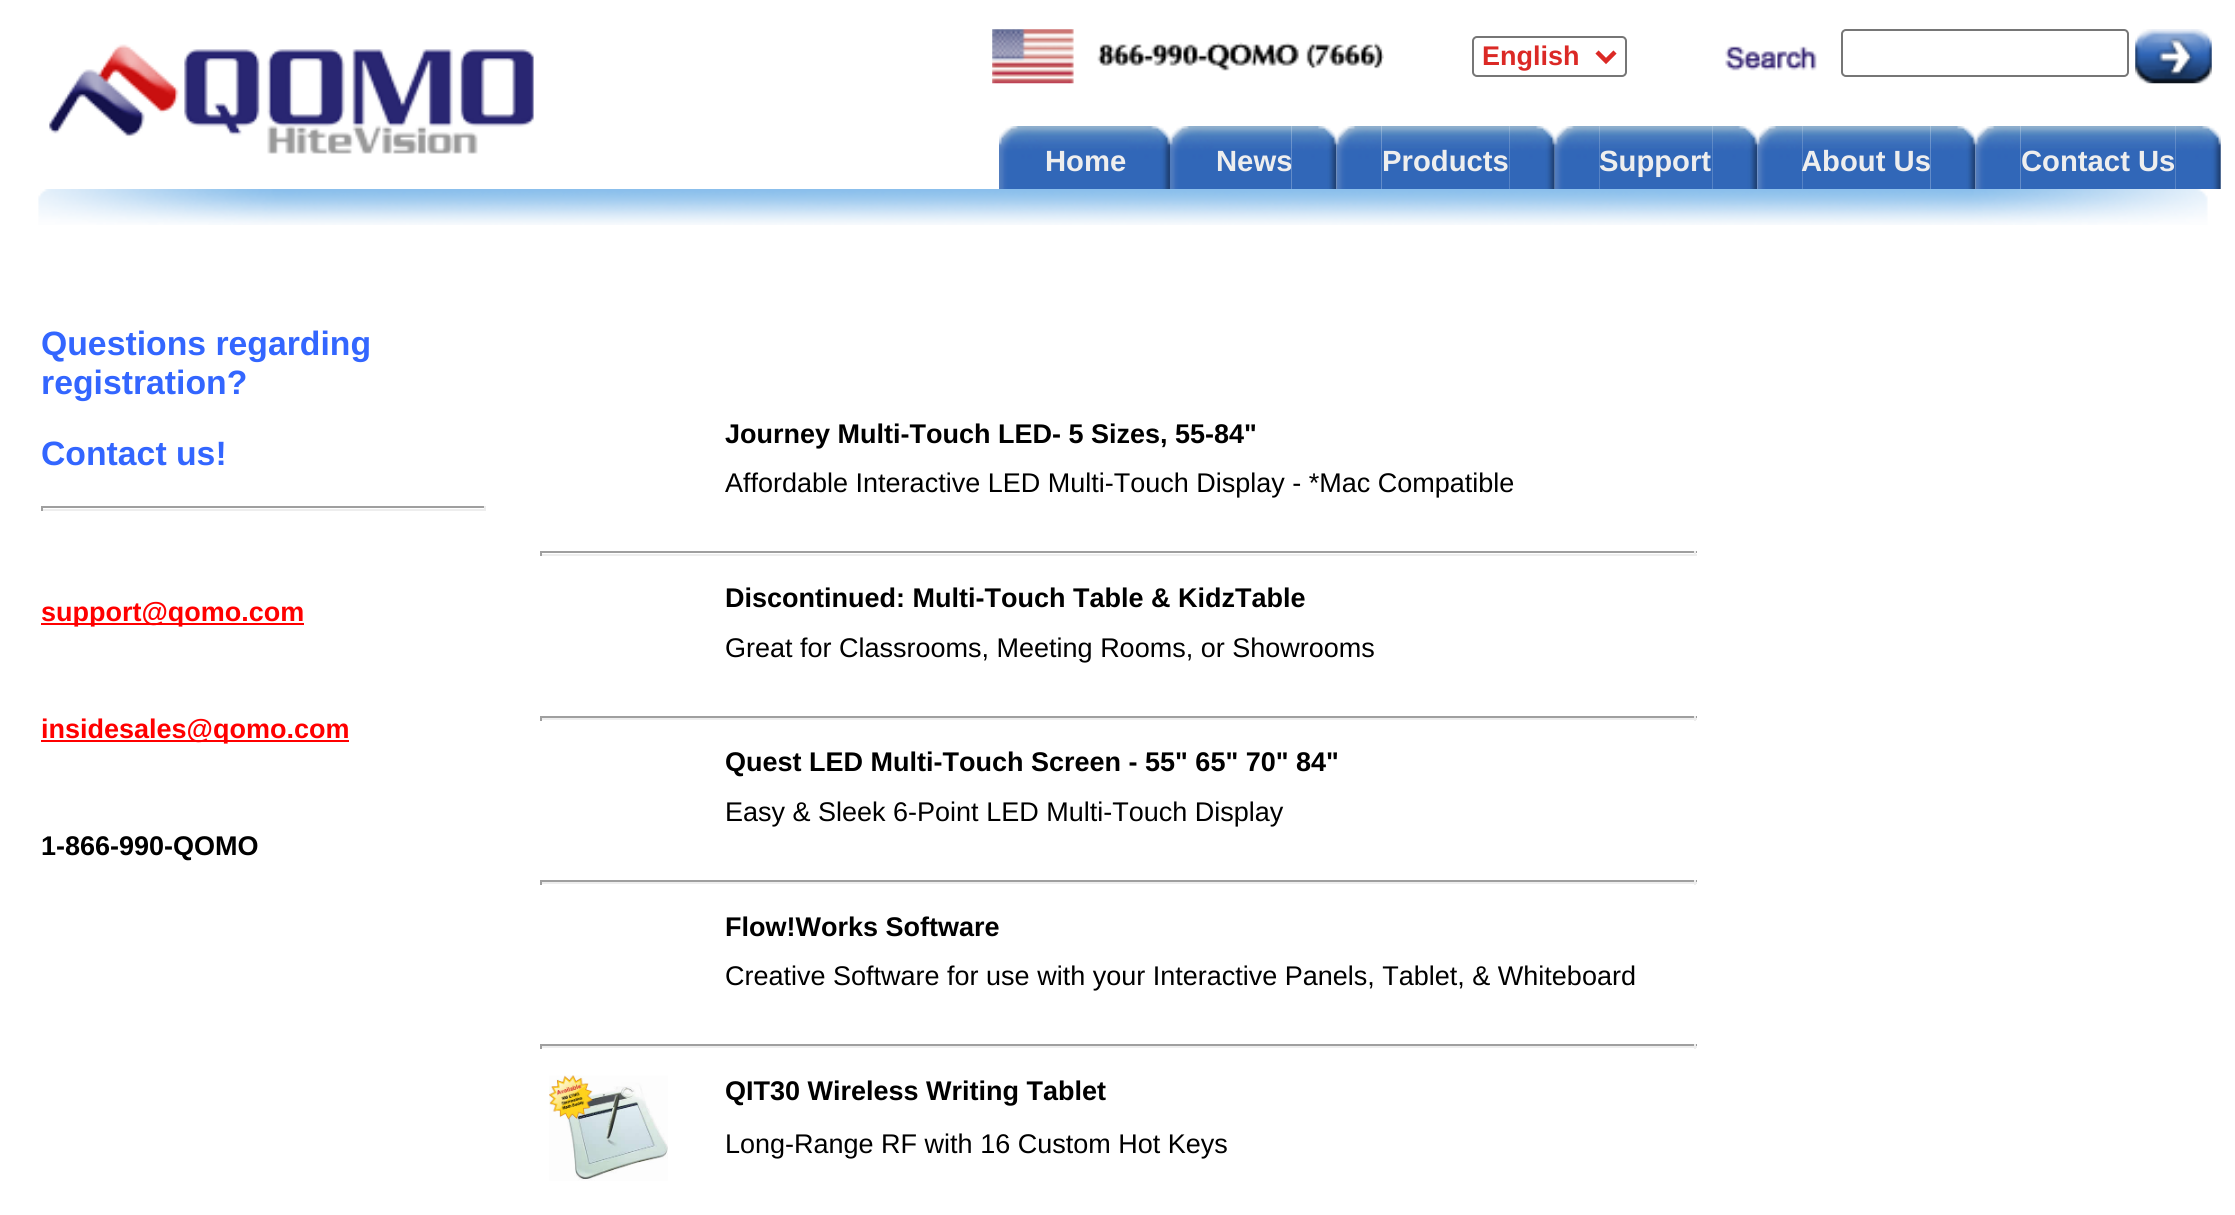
import math
import cairo



def rounded_rect(context, x, y, w, h, r):
    context.new_sub_path()
    for i, (u, v) in enumerate([(x + w - r, y + h - r), (x + r, y + h - r), (x + r, y + r), (x + w - r, y + r)]):
        context.arc(u, v, r, i * math.pi / 2, (i + 1) * math.pi / 2)
    context.close_path()


def draw_image(context, path, x, y, w, h):
    context.save()
    context.set_source_surface(cairo.ImageSurface.create_from_png(path), x, y)
    context.rectangle(x, y, w, h)
    context.fill()
    context.restore()


def draw(context):
    context.set_source_rgb(1, 1, 1)
    context.paint()
    draw_image(context, "images/1.png", 49, 44, 485, 110)
    draw_image(context, "images/2.png", 992, 29, 392, 55)
    rounded_rect(context, 1473, 37, 153, 39, 4)
    context.set_source_rgb(118 / 255, 118 / 255, 118 / 255)
    context.stroke()
    context.new_path()
    context.move_to(1597, 52)
    context.line_to(1606, 61)
    context.line_to(1615, 52)
    context.set_source_rgb(219 / 255, 41 / 255, 37 / 255)
    context.set_line_width(4.5)
    context.stroke()
    draw_image(context, "images/3.png", 1725, 46, 92, 25)
    rounded_rect(context, 1842, 30, 286, 46, 4)
    context.set_source_rgb(118 / 255, 118 / 255, 118 / 255)
    context.set_line_width(2)
    context.stroke()
    draw_image(context, "images/4.png", 2135, 29, 77, 55)
    draw_image(context, "images/5.png", 999, 126, 45, 63)
    draw_image(context, "images/6.png", 1044, 126, 81, 63)
    draw_image(context, "images/7.png", 1125, 126, 45, 63)
    draw_image(context, "images/8.png", 1170, 126, 45, 63)
    draw_image(context, "images/9.png", 1215, 126, 77, 63)
    draw_image(context, "images/12.png", 1381, 126, 129, 63)
    draw_image(context, "images/13.png", 1509, 126, 46, 63)
    draw_image(context, "images/15.png", 1599, 126, 114, 63)
    draw_image(context, "images/14.png", 1554, 126, 46, 63)
    draw_image(context, "images/16.png", 1712, 126, 46, 63)
    draw_image(context, "images/18.png", 1802, 126, 129, 63)
    draw_image(context, "images/17.png", 1757, 126, 46, 63)
    draw_image(context, "images/21.png", 2020, 126, 156, 63)
    draw_image(context, "images/22.png", 2175, 126, 46, 63)
    draw_image(context, "images/23.png", 38, 189, 2170, 36)
    context.set_source_rgb(159 / 255, 159 / 255, 159 / 255)
    context.rectangle(41, 506, 445, 2)
    context.fill()
    context.set_source_rgb(238 / 255, 238 / 255, 238 / 255)
    context.rectangle(484, 506, 2, 5)
    context.fill()
    context.rectangle(41, 509, 445, 2)
    context.fill()
    context.set_source_rgb(159 / 255, 159 / 255, 159 / 255)
    context.rectangle(41, 506, 2, 5)
    context.fill()
    context.set_source_rgb(1, 0, 0)
    context.rectangle(41, 623, 263, 2)
    context.fill()
    context.rectangle(41, 740, 308, 2)
    context.fill()
    context.set_source_rgb(159 / 255, 159 / 255, 159 / 255)
    context.rectangle(540, 551, 1157, 2)
    context.fill()
    context.set_source_rgb(238 / 255, 238 / 255, 238 / 255)
    context.rectangle(1694, 551, 2, 5)
    context.fill()
    context.rectangle(540, 554, 1157, 2)
    context.fill()
    context.set_source_rgb(159 / 255, 159 / 255, 159 / 255)
    context.rectangle(540, 551, 2, 5)
    context.fill()
    context.rectangle(540, 716, 1157, 2)
    context.fill()
    context.set_source_rgb(238 / 255, 238 / 255, 238 / 255)
    context.rectangle(1694, 716, 2, 5)
    context.fill()
    context.rectangle(540, 718, 1157, 2)
    context.fill()
    context.set_source_rgb(159 / 255, 159 / 255, 159 / 255)
    context.rectangle(540, 716, 2, 5)
    context.fill()
    context.rectangle(540, 880, 1157, 2)
    context.fill()
    context.set_source_rgb(238 / 255, 238 / 255, 238 / 255)
    context.rectangle(1694, 880, 2, 5)
    context.fill()
    context.rectangle(540, 882, 1157, 2)
    context.fill()
    context.set_source_rgb(159 / 255, 159 / 255, 159 / 255)
    context.rectangle(540, 880, 2, 5)
    context.fill()
    context.rectangle(540, 1044, 1157, 2)
    context.fill()
    context.set_source_rgb(238 / 255, 238 / 255, 238 / 255)
    context.rectangle(1694, 1044, 2, 5)
    context.fill()
    context.rectangle(540, 1046, 1157, 2)
    context.fill()
    context.set_source_rgb(159 / 255, 159 / 255, 159 / 255)
    context.rectangle(540, 1044, 2, 5)
    context.fill()
    draw_image(context, "images/24.png", 549, 1075, 119, 106)
    context.select_font_face("Liberation Sans", cairo.FontSlant.NORMAL, cairo.FontWeight.BOLD)
    context.set_font_size(27)
    context.set_source_rgb(219 / 255, 41 / 255, 37 / 255)
    context.move_to(1482, 65)
    context.show_text("English")
    context.set_font_size(29.25)
    context.set_source_rgb(238 / 255, 238 / 255, 238 / 255)
    context.move_to(1045, 171)
    context.show_text("Home")
    context.move_to(1216, 171)
    context.show_text("News")
    draw_image(context, "images/10.png", 1291, 126, 46, 63)
    draw_image(context, "images/11.png", 1336, 126, 46, 63)
    context.move_to(1382, 171)
    context.show_text("Products")
    context.move_to(1599, 171)
    context.show_text("Support")
    context.move_to(1801, 171)
    context.show_text("About Us")
    draw_image(context, "images/19.png", 1930, 126, 46, 63)
    draw_image(context, "images/20.png", 1975, 126, 46, 63)
    context.move_to(2021, 171)
    context.show_text("Contact Us")
    context.set_font_size(33.75)
    context.set_source_rgb(51 / 255, 102 / 255, 1)
    context.move_to(41, 355)
    context.show_text("Questions regarding")
    context.move_to(41, 394)
    context.show_text("registration?")
    context.move_to(41, 465)
    context.show_text("Contact us!")
    context.set_font_size(27)
    context.set_source_rgb(1, 0, 0)
    context.move_to(41, 621)
    context.show_text("support@qomo.com")
    context.move_to(41, 738)
    context.show_text("insidesales@qomo.com")
    context.set_source_rgb(0, 0, 0)
    context.move_to(41, 855)
    context.show_text("1-866-990-QOMO")
    context.move_to(725, 443)
    context.show_text("Journey Multi-Touch LED- 5 Sizes, 55-84\"")
    context.select_font_face("Liberation Sans")
    context.move_to(725, 492)
    context.show_text("Affordable Interactive LED Multi-Touch Display - *Mac Compatible")
    context.select_font_face("Liberation Sans", cairo.FontSlant.NORMAL, cairo.FontWeight.BOLD)
    context.move_to(725, 607)
    context.show_text("Discontinued: Multi-Touch Table & KidzTable")
    context.select_font_face("Liberation Sans")
    context.move_to(725, 657)
    context.show_text("Great for Classrooms, Meeting Rooms, or Showrooms")
    context.select_font_face("Liberation Sans", cairo.FontSlant.NORMAL, cairo.FontWeight.BOLD)
    context.move_to(725, 771)
    context.show_text("Quest LED Multi-Touch Screen - 55\" 65\" 70\" 84\"")
    context.select_font_face("Liberation Sans")
    context.move_to(725, 821)
    context.show_text("Easy & Sleek 6-Point LED Multi-Touch Display")
    context.select_font_face("Liberation Sans", cairo.FontSlant.NORMAL, cairo.FontWeight.BOLD)
    context.move_to(725, 936)
    context.show_text("Flow!Works Software")
    context.select_font_face("Liberation Sans")
    context.move_to(725, 985)
    context.show_text("Creative Software for use with your Interactive Panels, Tablet, & Whiteboard")
    context.select_font_face("Liberation Sans", cairo.FontSlant.NORMAL, cairo.FontWeight.BOLD)
    context.move_to(725, 1100)
    context.show_text("QIT30 Wireless Writing Tablet")
    context.select_font_face("Liberation Sans")
    context.move_to(725, 1153)
    context.show_text("Long-Range RF with 16 Custom Hot Keys")


surface = cairo.ImageSurface(cairo.Format.RGB24, 2235, 1215)
context = cairo.Context(surface)
options = cairo.FontOptions()
options.set_hint_metrics(cairo.HintMetrics.OFF)
options.set_hint_style(cairo.HintStyle.NONE)
context.set_font_options(options)
context.set_miter_limit(4)
draw(context)
surface.write_to_png("out.png")
